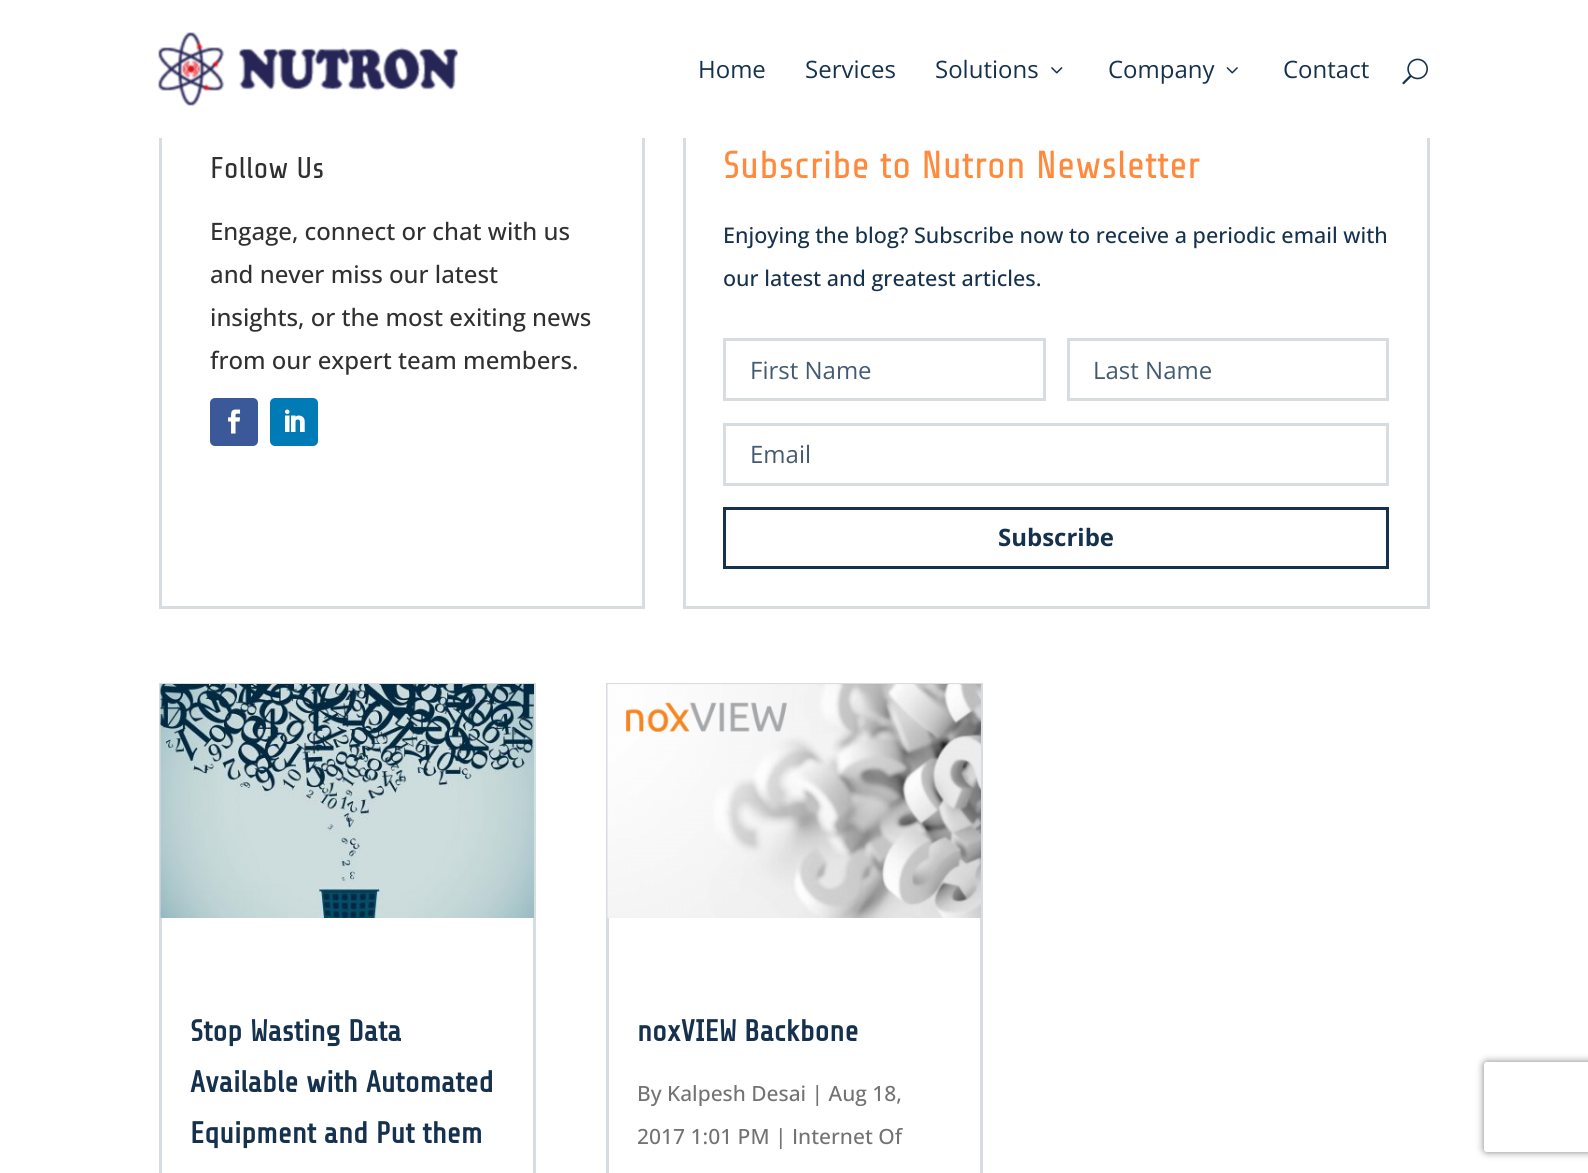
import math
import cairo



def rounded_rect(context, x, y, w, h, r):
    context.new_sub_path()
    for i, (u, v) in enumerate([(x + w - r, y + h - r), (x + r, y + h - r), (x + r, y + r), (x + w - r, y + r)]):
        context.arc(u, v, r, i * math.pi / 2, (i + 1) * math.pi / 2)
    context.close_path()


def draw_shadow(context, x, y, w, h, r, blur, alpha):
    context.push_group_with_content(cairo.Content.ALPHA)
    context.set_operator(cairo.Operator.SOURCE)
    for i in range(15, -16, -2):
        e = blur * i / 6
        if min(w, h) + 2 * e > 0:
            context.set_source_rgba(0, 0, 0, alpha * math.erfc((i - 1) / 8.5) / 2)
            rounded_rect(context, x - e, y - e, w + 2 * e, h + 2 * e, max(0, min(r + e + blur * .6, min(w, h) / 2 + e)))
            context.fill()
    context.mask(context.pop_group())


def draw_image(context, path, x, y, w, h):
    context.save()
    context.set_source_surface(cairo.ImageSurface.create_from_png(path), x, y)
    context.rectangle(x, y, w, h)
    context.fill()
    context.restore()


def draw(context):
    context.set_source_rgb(1, 1, 1)
    context.paint()
    context.rectangle(160.5, 94.5, 483, 513)
    context.set_source_rgb(215 / 255, 220 / 255, 225 / 255)
    context.set_line_width(3)
    context.stroke()
    context.rectangle(684.5, 94.5, 744, 513)
    context.stroke()
    context.set_source_rgb(1, 1, 1)
    context.rectangle(159, 93, 1271, 45)
    context.fill()
    draw_image(context, "images/1.png", 158, 32, 300, 74)
    draw_image(context, "images/2.png", 1051, 67, 12, 7)
    draw_image(context, "images/3.png", 1226, 67, 12, 7)
    draw_image(context, "images/4.png", 1402, 58, 26, 27)
    context.set_source_rgb(59 / 255, 89 / 255, 152 / 255)
    rounded_rect(context, 210, 398, 48, 48, 5)
    context.fill()
    draw_image(context, "images/5.png", 228, 409, 13, 25)
    context.set_source_rgb(0, 123 / 255, 182 / 255)
    rounded_rect(context, 270, 398, 48, 48, 5)
    context.fill()
    draw_image(context, "images/6.png", 285, 409, 20, 23)
    context.rectangle(724.5, 339.5, 320, 60)
    context.set_source_rgb(215 / 255, 220 / 255, 225 / 255)
    context.stroke()
    context.rectangle(1068.5, 339.5, 319, 60)
    context.stroke()
    context.rectangle(724.5, 424.5, 663, 60)
    context.stroke()
    context.rectangle(724.5, 508.5, 663, 59)
    context.set_source_rgb(21 / 255, 49 / 255, 78 / 255)
    context.stroke()
    context.rectangle(160.5, 684.5, 374, 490)
    context.set_source_rgb(215 / 255, 220 / 255, 225 / 255)
    context.stroke()
    draw_image(context, "images/7.png", 160, 684, 374, 234)
    context.rectangle(607.5, 684.5, 374, 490)
    context.stroke()
    draw_image(context, "images/8.png", 607, 684, 374, 234)
    context.save()
    context.set_fill_rule(cairo.FillRule.EVEN_ODD)
    context.new_path()
    context.move_to(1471, 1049)
    context.line_to(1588, 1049)
    context.line_to(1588, 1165)
    context.line_to(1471, 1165)
    context.close_path()
    context.move_to(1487, 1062)
    context.line_to(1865, 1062)
    context.curve_to(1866.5, 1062, 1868, 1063.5, 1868, 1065)
    context.line_to(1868, 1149)
    context.curve_to(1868, 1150.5, 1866.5, 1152, 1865, 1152)
    context.line_to(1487, 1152)
    context.curve_to(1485.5, 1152, 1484, 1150.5, 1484, 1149)
    context.line_to(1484, 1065)
    context.curve_to(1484, 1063.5, 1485.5, 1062, 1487, 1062)
    context.close_path()
    context.clip()
    context.set_source_rgb(128 / 255, 128 / 255, 128 / 255)
    draw_shadow(context, 1484, 1062, 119, 90, 3, 4, 1)
    context.restore()
    context.select_font_face("Open Sans")
    context.set_font_size(24)
    context.set_source_rgb(21 / 255, 49 / 255, 78 / 255)
    context.move_to(698, 78)
    context.show_text("Home")
    context.move_to(805, 78)
    context.show_text("Services")
    context.move_to(935, 78)
    context.show_text("Solutions")
    context.move_to(1108, 78)
    context.show_text("Company")
    context.move_to(1283, 78)
    context.show_text("Contact")
    context.select_font_face("Share Tech")
    context.set_font_size(30)
    context.set_source_rgb(48 / 255, 48 / 255, 48 / 255)
    context.move_to(210, 178)
    context.show_text("Follow Us")
    context.select_font_face("Open Sans Medium")
    context.set_font_size(24)
    context.move_to(210, 240)
    context.show_text("Engage, connect or chat with us")
    context.move_to(210, 283)
    context.show_text("and never miss our latest")
    context.move_to(210, 326)
    context.show_text("insights, or the most exiting news")
    context.move_to(210, 369)
    context.show_text("from our expert team members.")
    context.select_font_face("Share Tech")
    context.set_font_size(39)
    context.set_source_rgb(1, 138 / 255, 61 / 255)
    context.move_to(723, 178)
    context.show_text("Subscribe to Nutron Newsletter")
    context.select_font_face("Open Sans Medium")
    context.set_font_size(21.6)
    context.set_source_rgb(21 / 255, 49 / 255, 78 / 255)
    context.move_to(723, 243)
    context.show_text("Enjoying the blog? Subscribe now to receive a periodic email with")
    context.move_to(723, 286)
    context.show_text("our latest and greatest articles.")
    context.select_font_face("Open Sans")
    context.set_font_size(24)
    context.set_source_rgb(68 / 255, 90 / 255, 113 / 255)
    context.move_to(750, 379)
    context.show_text("First Name")
    context.move_to(1093, 379)
    context.show_text("Last Name")
    context.move_to(750, 463)
    context.show_text("Email")
    context.select_font_face("Open Sans", cairo.FontSlant.NORMAL, cairo.FontWeight.BOLD)
    context.set_source_rgb(21 / 255, 49 / 255, 78 / 255)
    context.move_to(998, 546)
    context.show_text("Subscribe")
    context.select_font_face("Share Tech", cairo.FontSlant.NORMAL, cairo.FontWeight.BOLD)
    context.set_font_size(30)
    context.move_to(190, 1041)
    context.show_text("Stop Wasting Data")
    context.move_to(190, 1092)
    context.show_text("Available with Automated")
    context.move_to(190, 1143)
    context.show_text("Equipment and Put them")
    context.move_to(637, 1041)
    context.show_text("noxVIEW Backbone")
    context.select_font_face("Open Sans Medium")
    context.set_font_size(21)
    context.set_source_rgb(114 / 255, 114 / 255, 114 / 255)
    context.move_to(637, 1101)
    context.show_text("By Kalpesh Desai | Aug 18,")
    context.move_to(637, 1144)
    context.show_text("2017 1:01 PM | Internet Of")


surface = cairo.ImageSurface(cairo.Format.RGB24, 1588, 1173)
context = cairo.Context(surface)
options = cairo.FontOptions()
options.set_hint_metrics(cairo.HintMetrics.OFF)
options.set_hint_style(cairo.HintStyle.NONE)
context.set_font_options(options)
context.set_miter_limit(4)
draw(context)
surface.write_to_png("out.png")
